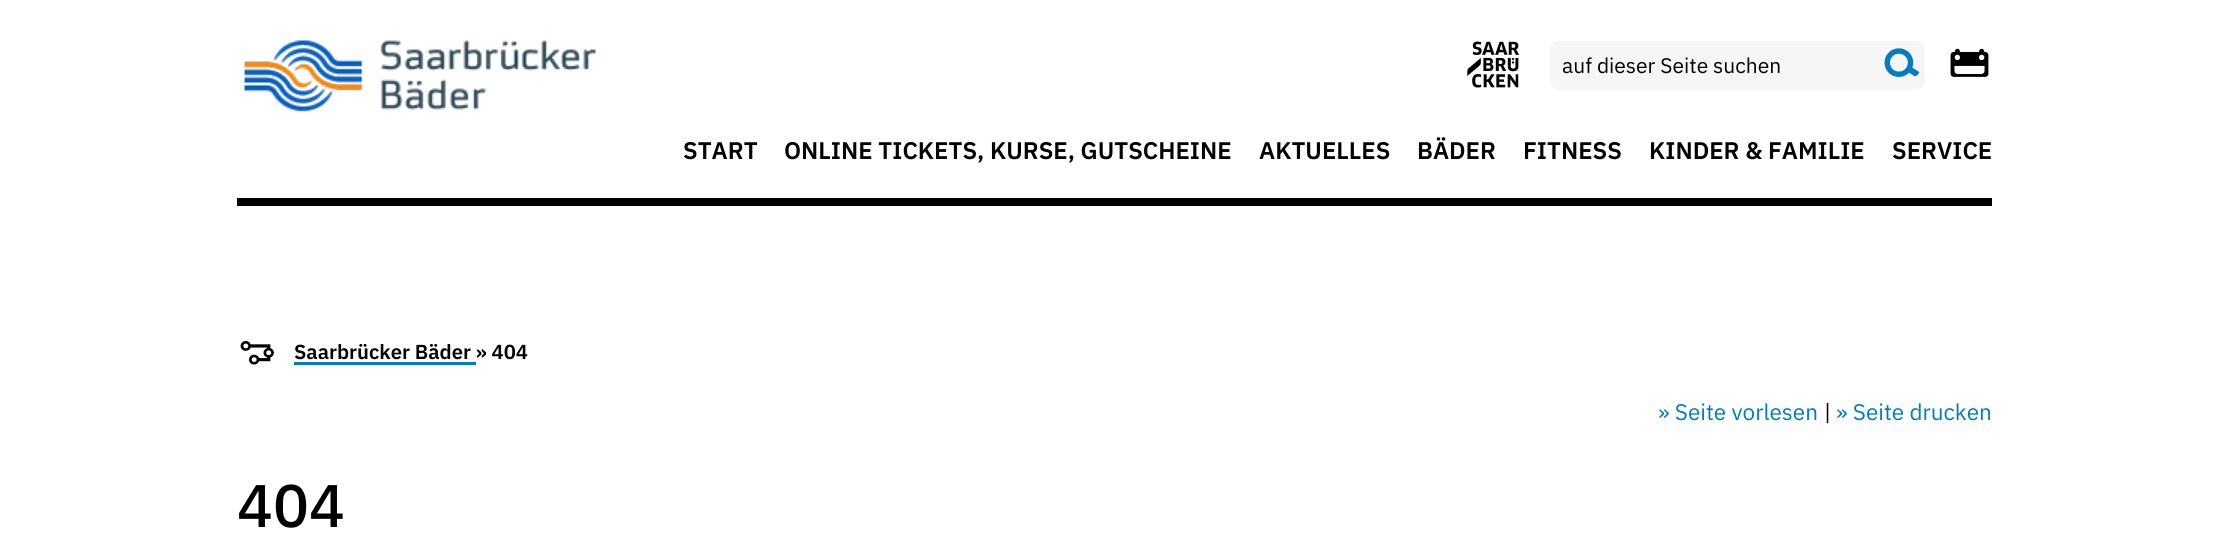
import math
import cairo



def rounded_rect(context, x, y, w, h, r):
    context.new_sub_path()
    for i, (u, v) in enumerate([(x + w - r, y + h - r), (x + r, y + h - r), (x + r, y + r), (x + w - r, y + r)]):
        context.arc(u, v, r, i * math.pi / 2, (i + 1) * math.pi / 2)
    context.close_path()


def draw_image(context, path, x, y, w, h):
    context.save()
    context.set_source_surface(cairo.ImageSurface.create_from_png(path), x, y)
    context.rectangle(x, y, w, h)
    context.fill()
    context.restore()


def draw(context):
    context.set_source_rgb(1, 1, 1)
    context.paint()
    context.set_source_rgb(0, 0, 0)
    context.rectangle(237, 198, 1755, 8)
    context.fill()
    draw_image(context, "images/1.png", 244, 40, 352, 72)
    draw_image(context, "images/2.png", 1467, 41, 53, 47)
    context.set_source_rgb(246 / 255, 246 / 255, 246 / 255)
    rounded_rect(context, 1550, 41, 375, 49, 9)
    context.fill()
    draw_image(context, "images/3.png", 1884, 48, 36, 29)
    draw_image(context, "images/4.png", 1950, 48, 39, 29)
    draw_image(context, "images/5.png", 240, 341, 34, 24)
    context.set_source_rgb(0, 124 / 255, 193 / 255)
    context.rectangle(294, 362, 182, 3)
    context.fill()
    context.select_font_face("IBM Plex Sans")
    context.set_font_size(21)
    context.set_source_rgb(0, 0, 0)
    context.move_to(1562, 73)
    context.show_text("auf dieser Seite suchen")
    context.select_font_face("IBM Plex Sans SemiBold")
    context.set_font_size(24)
    context.move_to(683, 159)
    context.show_text("START")
    context.move_to(784, 159)
    context.show_text("ONLINE TICKETS, KURSE, GUTSCHEINE")
    context.move_to(1259, 159)
    context.show_text("AKTUELLES")
    context.move_to(1417, 159)
    context.show_text("BÄDER")
    context.move_to(1523, 159)
    context.show_text("FITNESS")
    context.move_to(1649, 159)
    context.show_text("KINDER & FAMILIE")
    context.move_to(1892, 159)
    context.show_text("SERVICE")
    context.set_font_size(20.25)
    context.move_to(294, 359)
    context.show_text("Saarbrücker Bäder » 404")
    context.select_font_face("IBM Plex Sans")
    context.set_font_size(22.5)
    context.set_source_rgb(0, 124 / 255, 193 / 255)
    context.move_to(1658, 420)
    context.show_text("» Seite vorlesen")
    context.set_source_rgb(0, 0, 0)
    context.move_to(1824, 420)
    context.show_text("|")
    context.set_source_rgb(0, 124 / 255, 193 / 255)
    context.move_to(1836, 420)
    context.show_text("» Seite drucken")
    context.select_font_face("IBM Plex Sans Medium")
    context.set_font_size(60)
    context.set_source_rgb(0, 0, 0)
    context.move_to(237, 527)
    context.show_text("404")


surface = cairo.ImageSurface(cairo.Format.RGB24, 2229, 548)
context = cairo.Context(surface)
options = cairo.FontOptions()
options.set_hint_metrics(cairo.HintMetrics.OFF)
options.set_hint_style(cairo.HintStyle.NONE)
context.set_font_options(options)
context.set_miter_limit(4)
draw(context)
surface.write_to_png("out.png")
